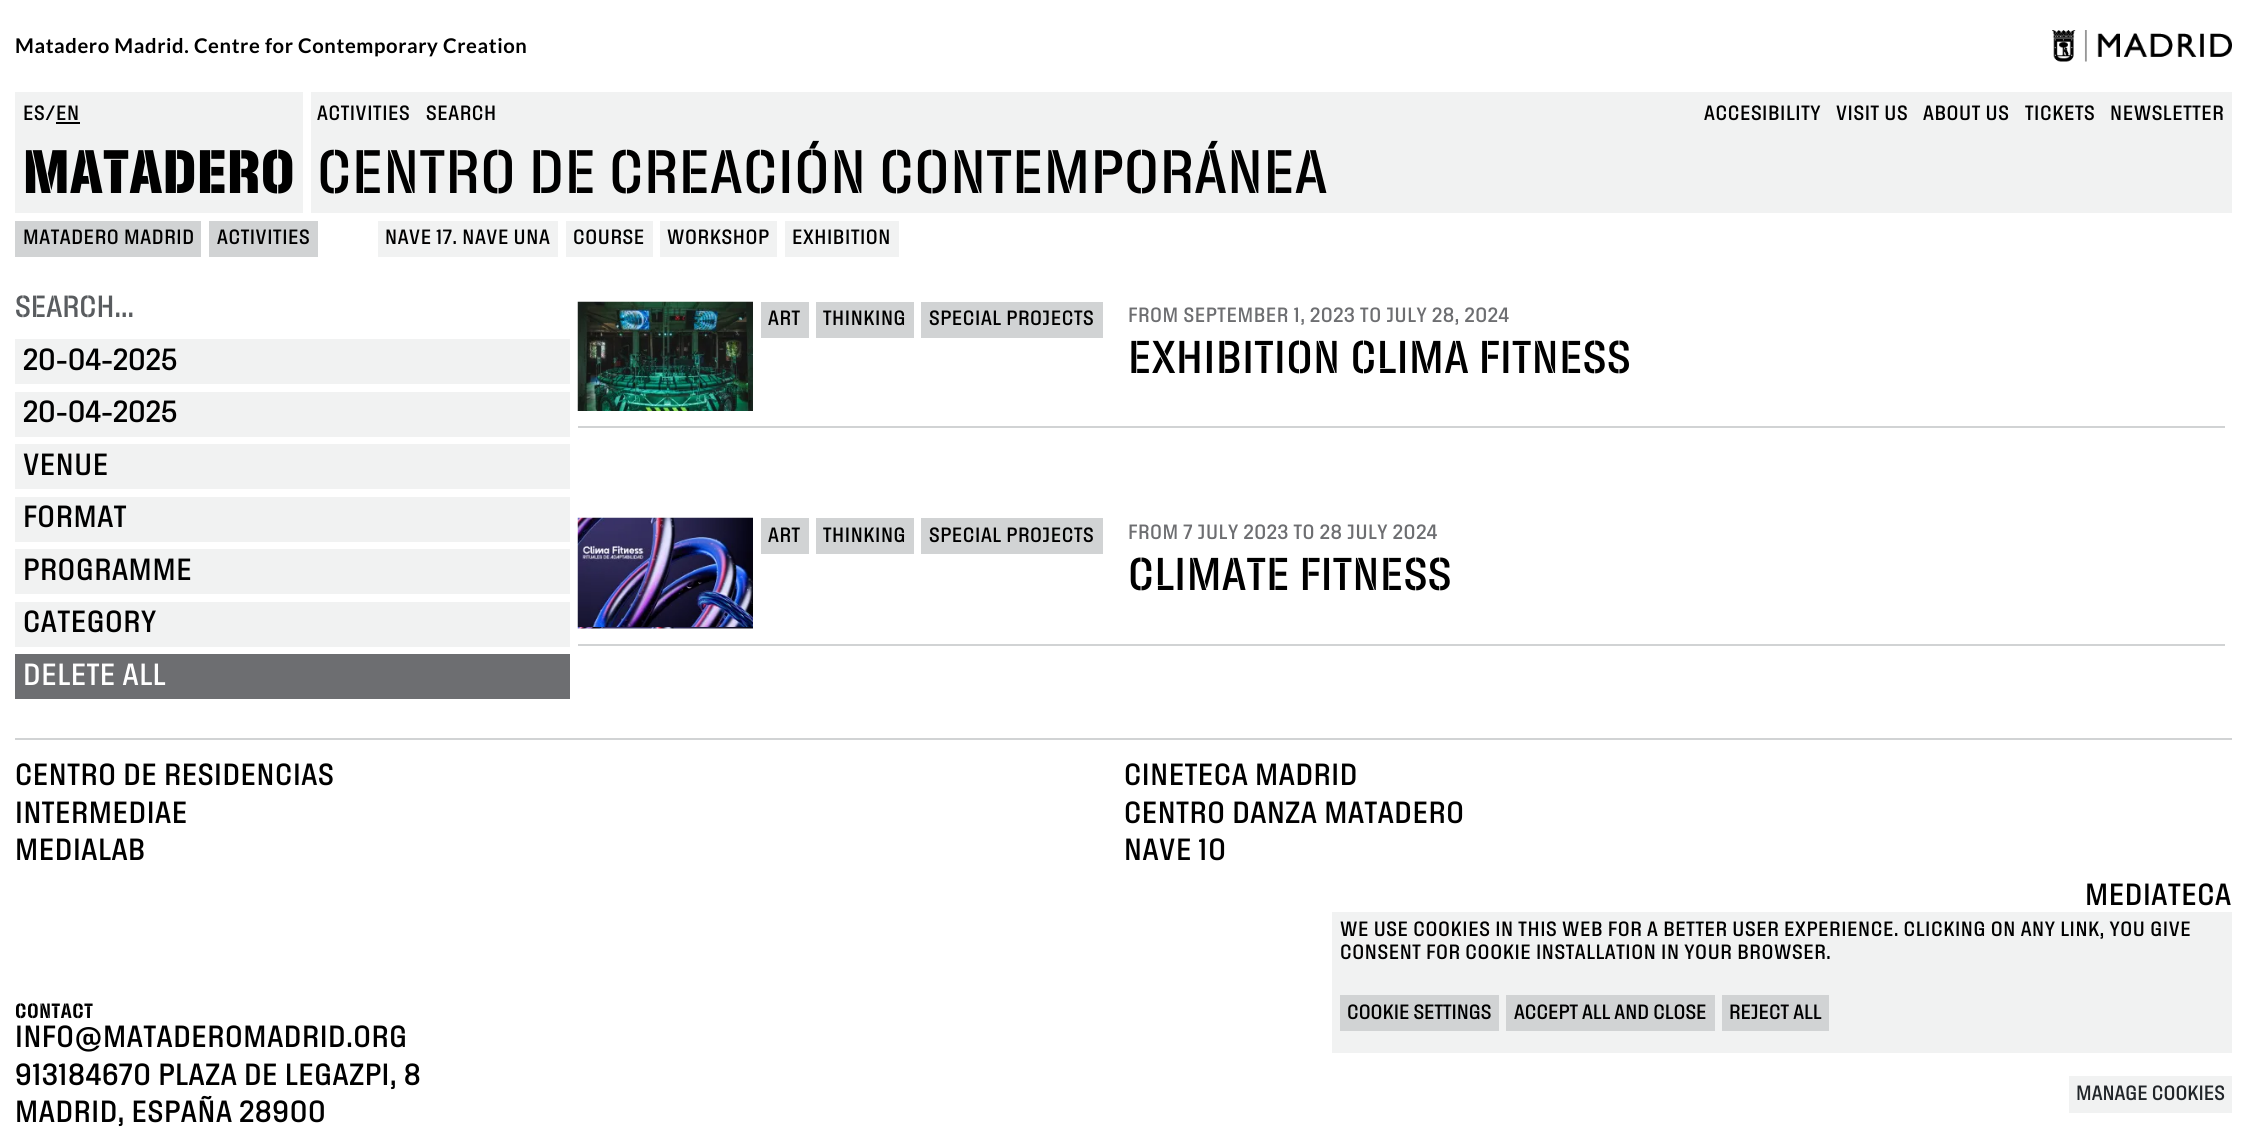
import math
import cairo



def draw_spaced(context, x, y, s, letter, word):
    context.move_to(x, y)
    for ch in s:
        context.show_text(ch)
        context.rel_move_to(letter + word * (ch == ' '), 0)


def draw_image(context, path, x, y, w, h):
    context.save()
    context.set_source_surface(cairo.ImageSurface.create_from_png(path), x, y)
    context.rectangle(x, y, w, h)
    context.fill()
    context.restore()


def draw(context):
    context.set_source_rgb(1, 1, 1)
    context.paint()
    draw_image(context, "images/1.png", 2052, 30, 180, 32)
    context.set_source_rgb(241 / 255, 242 / 255, 242 / 255)
    context.rectangle(15, 92, 288, 121)
    context.fill()
    context.set_source_rgb(0, 0, 0)
    context.rectangle(56, 122, 24, 2)
    context.fill()
    context.set_source_rgb(241 / 255, 242 / 255, 242 / 255)
    context.rectangle(311, 92, 1921, 121)
    context.fill()
    context.set_source_rgb(209 / 255, 211 / 255, 212 / 255)
    context.rectangle(15, 221, 186, 36)
    context.fill()
    context.rectangle(209, 221, 109, 36)
    context.fill()
    context.set_source_rgb(241 / 255, 242 / 255, 242 / 255)
    context.rectangle(378, 221, 180, 36)
    context.fill()
    context.rectangle(566, 221, 87, 36)
    context.fill()
    context.rectangle(660, 221, 117, 36)
    context.fill()
    context.rectangle(785, 221, 114, 36)
    context.fill()
    context.rectangle(15, 339, 555, 45)
    context.fill()
    context.rectangle(15, 392, 555, 45)
    context.fill()
    context.rectangle(15, 444, 555, 45)
    context.fill()
    context.rectangle(15, 497, 555, 45)
    context.fill()
    context.rectangle(15, 549, 555, 45)
    context.fill()
    context.rectangle(15, 602, 555, 45)
    context.fill()
    context.set_source_rgb(109 / 255, 110 / 255, 113 / 255)
    context.rectangle(15, 654, 555, 45)
    context.fill()
    context.set_source_rgb(209 / 255, 211 / 255, 212 / 255)
    context.rectangle(578, 426, 1647, 2)
    context.fill()
    draw_image(context, "images/2.png", 577, 301, 176, 110)
    context.rectangle(761, 302, 48, 36)
    context.fill()
    context.rectangle(816, 302, 98, 36)
    context.fill()
    context.rectangle(921, 302, 182, 36)
    context.fill()
    context.rectangle(578, 644, 1647, 2)
    context.fill()
    draw_image(context, "images/3.png", 577, 517, 176, 110)
    draw_image(context, "images/4.png", 577, 627, 176, 2)
    context.rectangle(761, 518, 48, 36)
    context.fill()
    context.rectangle(816, 518, 98, 36)
    context.fill()
    context.rectangle(921, 518, 182, 36)
    context.fill()
    context.rectangle(15, 738, 2217, 2)
    context.fill()
    context.set_source_rgb(241 / 255, 242 / 255, 242 / 255)
    context.rectangle(1332, 912, 900, 141)
    context.fill()
    context.set_source_rgb(209 / 255, 211 / 255, 212 / 255)
    context.rectangle(1340, 995, 159, 36)
    context.fill()
    context.rectangle(1506, 995, 209, 36)
    context.fill()
    context.rectangle(1722, 995, 107, 36)
    context.fill()
    context.set_source_rgb(241 / 255, 242 / 255, 242 / 255)
    context.rectangle(2069, 1076, 163, 37)
    context.fill()
    context.select_font_face("Lato", cairo.FontSlant.NORMAL, cairo.FontWeight.BOLD)
    context.set_font_size(20.25)
    context.set_source_rgb(0, 0, 0)
    draw_spaced(context, 15, 53, "Matadero Madrid. Centre for Contemporary Creation", 0.6, 0)
    context.select_font_face("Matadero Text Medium")
    draw_spaced(context, 23, 120, "ES/EN", 0.6, 0)
    context.select_font_face("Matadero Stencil", cairo.FontSlant.NORMAL, cairo.FontWeight.BOLD)
    context.set_font_size(60)
    draw_spaced(context, 23, 193, "MATADERO", 0.6, 0)
    context.select_font_face("Matadero Text Medium")
    context.set_font_size(20.25)
    draw_spaced(context, 317, 120, "ACTIVITIES", 0.6, 0)
    draw_spaced(context, 426, 120, "SEARCH", 0.6, 0)
    draw_spaced(context, 1704, 120, "ACCESIBILITY", 0.6, 0)
    draw_spaced(context, 1836, 120, "VISIT US", 0.6, 0)
    draw_spaced(context, 1923, 120, "ABOUT US", 0.6, 0)
    draw_spaced(context, 2025, 120, "TICKETS", 0.6, 0)
    draw_spaced(context, 2110, 120, "NEWSLETTER", 0.6, 0)
    context.select_font_face("Matadero Stencil Medium")
    context.set_font_size(60)
    draw_spaced(context, 317, 193, "CENTRO DE CREACIÓN CONTEMPORÁNEA", 0.6, 0)
    context.select_font_face("Matadero Text Medium")
    context.set_font_size(20.25)
    draw_spaced(context, 23, 244, "MATADERO MADRID", 0.6, 0)
    draw_spaced(context, 217, 244, "ACTIVITIES", 0.6, 0)
    draw_spaced(context, 385, 244, "NAVE 17. NAVE UNA", 0.6, 0)
    draw_spaced(context, 573, 244, "COURSE", 0.6, 0)
    draw_spaced(context, 667, 244, "WORKSHOP", 0.6, 0)
    draw_spaced(context, 792, 244, "EXHIBITION", 0.6, 0)
    context.select_font_face("Matadero Stencil Medium")
    context.set_font_size(30)
    context.set_source_rgb(89 / 255, 92 / 255, 95 / 255)
    context.move_to(15, 317)
    context.show_text("SEARCH...")
    context.select_font_face("Matadero Text Medium")
    context.set_source_rgb(0, 0, 0)
    context.move_to(23, 370)
    context.show_text("20-04-2025")
    context.move_to(23, 422)
    context.show_text("20-04-2025")
    draw_spaced(context, 23, 475, "VENUE", 0.6, 0)
    draw_spaced(context, 23, 527, "FORMAT", 0.6, 0)
    draw_spaced(context, 23, 580, "PROGRAMME", 0.6, 0)
    draw_spaced(context, 23, 632, "CATEGORY", 0.6, 0)
    context.set_source_rgb(1, 1, 1)
    draw_spaced(context, 23, 685, "DELETE ALL", 0.6, 0)
    context.set_font_size(20.25)
    context.set_source_rgb(0, 0, 0)
    draw_spaced(context, 768, 325, "ART", 0.6, 0)
    draw_spaced(context, 823, 325, "THINKING", 0.6, 0)
    draw_spaced(context, 929, 325, "SPECIAL PROJECTS", 0.6, 0)
    context.set_source_rgb(109 / 255, 110 / 255, 113 / 255)
    draw_spaced(context, 1128, 322, "FROM SEPTEMBER 1, 2023 TO JULY 28, 2024", 0.6, 0)
    context.select_font_face("Matadero Stencil Medium")
    context.set_font_size(45)
    context.set_source_rgb(0, 0, 0)
    draw_spaced(context, 1128, 373, "EXHIBITION CLIMA FITNESS", 0.6, 0)
    context.select_font_face("Matadero Text Medium")
    context.set_font_size(20.25)
    draw_spaced(context, 768, 542, "ART", 0.6, 0)
    draw_spaced(context, 823, 542, "THINKING", 0.6, 0)
    draw_spaced(context, 929, 542, "SPECIAL PROJECTS", 0.6, 0)
    context.set_source_rgb(109 / 255, 110 / 255, 113 / 255)
    draw_spaced(context, 1128, 539, "FROM 7 JULY 2023 TO 28 JULY 2024", 0.6, 0)
    context.select_font_face("Matadero Stencil Medium")
    context.set_font_size(45)
    context.set_source_rgb(0, 0, 0)
    draw_spaced(context, 1128, 590, "CLIMATE FITNESS", 0.6, 0)
    context.select_font_face("Matadero Text Medium")
    context.set_font_size(30)
    draw_spaced(context, 15, 785, "CENTRO DE RESIDENCIAS", 0.6, 0)
    draw_spaced(context, 1124, 785, "CINETECA MADRID", 0.6, 0)
    draw_spaced(context, 15, 823, "INTERMEDIAE", 0.6, 0)
    draw_spaced(context, 1124, 823, "CENTRO DANZA MATADERO", 0.6, 0)
    draw_spaced(context, 15, 860, "MEDIALAB", 0.6, 0)
    draw_spaced(context, 1124, 860, "NAVE 10", 0.6, 0)
    draw_spaced(context, 2085, 905, "MEDIATECA", 0.6, 0)
    context.select_font_face("Matadero Stencil SemiBold")
    context.set_font_size(20.25)
    draw_spaced(context, 15, 1018, "CONTACT", 0.6, 0)
    context.select_font_face("Matadero Text Medium")
    context.set_font_size(30)
    draw_spaced(context, 15, 1047, "INFO@MATADEROMADRID.ORG", 0.6, 0)
    draw_spaced(context, 15, 1085, "913184670 PLAZA DE LEGAZPI, 8", 0.6, 0)
    draw_spaced(context, 15, 1122, "MADRID, ESPAÑA 28900", 0.6, 0)
    context.set_font_size(20.25)
    draw_spaced(context, 1340, 936, "WE USE COOKIES IN THIS WEB FOR A BETTER USER EXPERIENCE. CLICKING ON ANY LINK, YOU GIVE", 0.6, 0)
    draw_spaced(context, 1340, 959, "CONSENT FOR COOKIE INSTALLATION IN YOUR BROWSER.", 0.6, 0)
    context.move_to(1347, 1019)
    context.show_text("COOKIE SETTINGS")
    context.move_to(1514, 1019)
    context.show_text("ACCEPT ALL AND CLOSE")
    context.move_to(1729, 1019)
    context.show_text("REJECT ALL")
    context.set_source_rgb(33 / 255, 37 / 255, 41 / 255)
    context.move_to(2076, 1100)
    context.show_text("MANAGE COOKIES")


surface = cairo.ImageSurface(cairo.Format.RGB24, 2246, 1143)
context = cairo.Context(surface)
options = cairo.FontOptions()
options.set_hint_metrics(cairo.HintMetrics.OFF)
options.set_hint_style(cairo.HintStyle.NONE)
context.set_font_options(options)
context.set_miter_limit(4)
draw(context)
surface.write_to_png("out.png")
